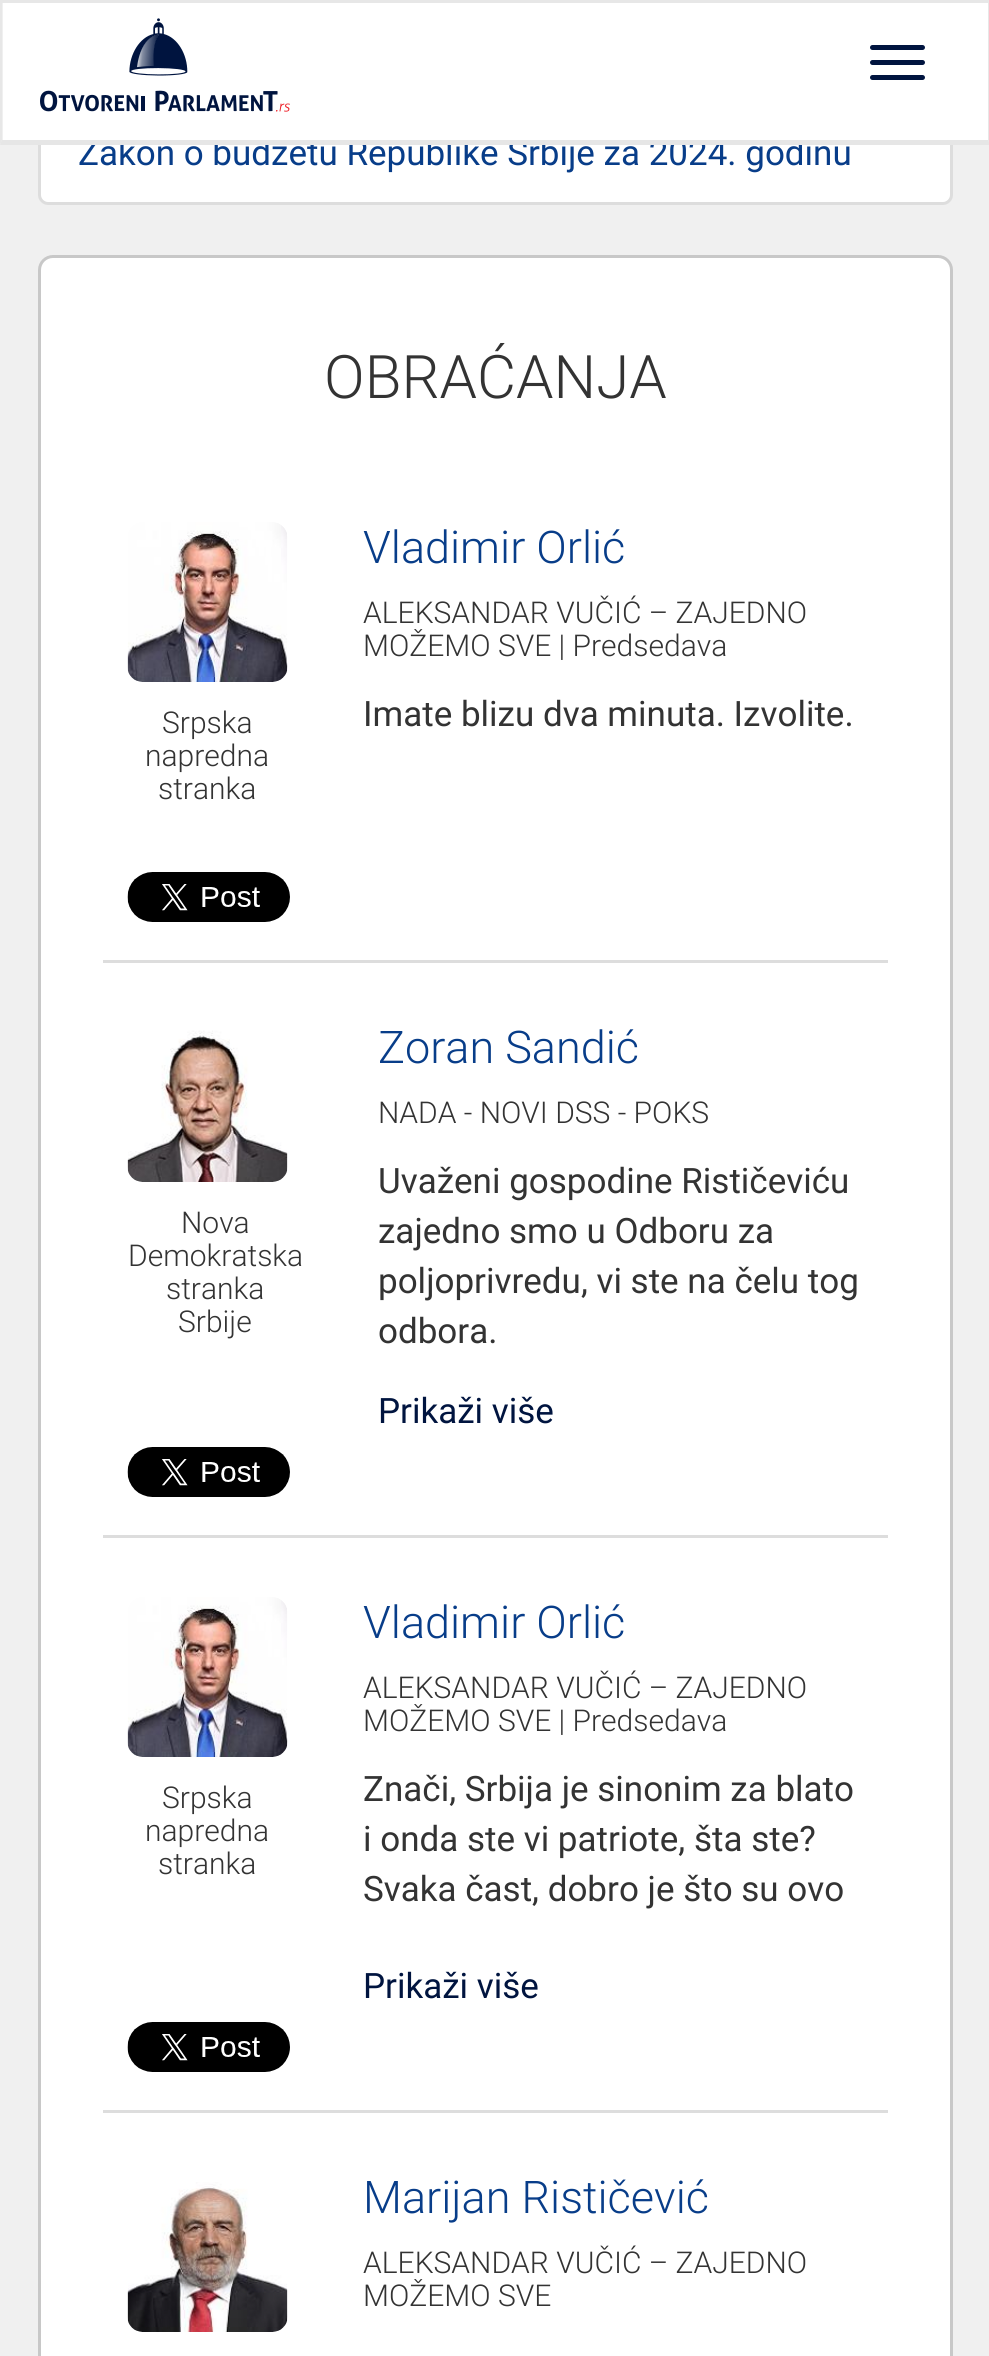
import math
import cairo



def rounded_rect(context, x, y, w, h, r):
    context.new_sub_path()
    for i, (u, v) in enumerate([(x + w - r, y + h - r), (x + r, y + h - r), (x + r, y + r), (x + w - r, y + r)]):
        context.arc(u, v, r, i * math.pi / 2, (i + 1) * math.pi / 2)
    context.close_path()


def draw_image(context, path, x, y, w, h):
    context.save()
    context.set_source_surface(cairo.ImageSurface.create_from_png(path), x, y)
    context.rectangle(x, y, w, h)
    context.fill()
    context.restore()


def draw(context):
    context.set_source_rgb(240 / 255, 240 / 255, 240 / 255)
    context.paint()
    context.set_source_rgb(231 / 255, 231 / 255, 231 / 255)
    context.rectangle(0, 0, 989, 3)
    context.fill()
    context.new_path()
    context.move_to(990, 0)
    context.line_to(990, 145)
    context.line_to(988, 140)
    context.line_to(988, 2)
    context.close_path()
    context.fill()
    context.set_source_rgb(1, 1, 1)
    context.new_path()
    context.move_to(39.5, 101.5)
    context.line_to(951.5, 101.5)
    context.line_to(951.5, 195)
    context.curve_to(951.5, 199.5, 947.5, 203.5, 943, 203.5)
    context.line_to(48, 203.5)
    context.curve_to(43.5, 203.5, 39.5, 199.5, 39.5, 195)
    context.close_path()
    context.fill_preserve()
    context.set_source_rgb(221 / 255, 221 / 255, 221 / 255)
    context.set_line_width(3)
    context.stroke()
    context.set_source_rgb(1, 1, 1)
    rounded_rect(context, 39.5, 256.5, 912, 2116, 13.5)
    context.fill_preserve()
    context.set_source_rgb(200 / 255, 200 / 255, 200 / 255)
    context.stroke()
    context.set_source_rgb(221 / 255, 221 / 255, 221 / 255)
    context.rectangle(103, 960, 785, 3)
    context.fill()
    draw_image(context, "images/2.png", 127, 522, 161, 160)
    draw_image(context, "images/3.png", 127, 872, 163, 50)
    context.rectangle(103, 1535, 785, 3)
    context.fill()
    draw_image(context, "images/4.png", 127, 1030, 161, 152)
    draw_image(context, "images/3.png", 127, 1447, 163, 50)
    context.rectangle(103, 2110, 785, 3)
    context.fill()
    draw_image(context, "images/5.png", 127, 1597, 161, 160)
    draw_image(context, "images/6.png", 127, 2022, 163, 50)
    draw_image(context, "images/7.png", 127, 2182, 161, 150)
    context.select_font_face("Roboto")
    context.set_font_size(35)
    context.set_source_rgb(8 / 255, 61 / 255, 137 / 255)
    context.move_to(78, 165)
    context.show_text("Zakon o budžetu Republike Srbije za 2024. godinu")
    context.set_source_rgb(1, 1, 1)
    context.rectangle(3, 3, 985, 137)
    context.fill()
    context.set_source_rgb(0, 20 / 255, 63 / 255)
    rounded_rect(context, 870, 75, 55, 5, 2.5)
    context.fill()
    rounded_rect(context, 870, 60, 55, 5, 2.5)
    context.fill()
    rounded_rect(context, 870, 45, 55, 5, 2.5)
    context.fill()
    draw_image(context, "images/1.png", 40, 18, 250, 94)
    context.set_source_rgb(230 / 255, 230 / 255, 230 / 255)
    context.new_path()
    context.move_to(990, 145)
    context.line_to(0, 145)
    context.line_to(2, 140)
    context.line_to(988, 140)
    context.close_path()
    context.fill()
    context.set_source_rgb(231 / 255, 231 / 255, 231 / 255)
    context.new_path()
    context.move_to(0, 145)
    context.line_to(0, 0)
    context.line_to(2, 2)
    context.line_to(2, 140)
    context.close_path()
    context.fill()
    context.select_font_face("Roboto Light")
    context.set_font_size(60)
    context.set_source_rgb(51 / 255, 51 / 255, 51 / 255)
    context.move_to(324, 398)
    context.show_text("OBRAĆANJA")
    context.set_font_size(45)
    context.set_source_rgb(8 / 255, 61 / 255, 137 / 255)
    context.move_to(363, 563)
    context.show_text("Vladimir Orlić")
    context.set_font_size(30)
    context.set_source_rgb(51 / 255, 51 / 255, 51 / 255)
    context.move_to(363, 623)
    context.show_text("ALEKSANDAR VUČIĆ – ZAJEDNO")
    context.move_to(363, 656)
    context.show_text("MOŽEMO SVE | Predsedava")
    context.select_font_face("Roboto")
    context.set_font_size(35)
    context.move_to(363, 726)
    context.show_text("Imate blizu dva minuta. Izvolite.")
    context.select_font_face("Roboto Light")
    context.set_font_size(30)
    context.move_to(162, 733)
    context.show_text("Srpska")
    context.move_to(145, 766)
    context.show_text("napredna")
    context.move_to(158, 799)
    context.show_text("stranka")
    context.move_to(181, 1233)
    context.show_text("Nova")
    context.move_to(128, 1266)
    context.show_text("Demokratska")
    context.move_to(166, 1299)
    context.show_text("stranka")
    context.move_to(178, 1332)
    context.show_text("Srbije")
    context.set_font_size(45)
    context.set_source_rgb(8 / 255, 61 / 255, 137 / 255)
    context.move_to(378, 1063)
    context.show_text("Zoran Sandić")
    context.set_font_size(30)
    context.set_source_rgb(51 / 255, 51 / 255, 51 / 255)
    context.move_to(378, 1123)
    context.show_text("NADA - NOVI DSS - POKS")
    context.select_font_face("Roboto")
    context.set_font_size(35)
    context.move_to(378, 1193)
    context.show_text("Uvaženi gospodine Rističeviću")
    context.move_to(378, 1243)
    context.show_text("zajedno smo u Odboru za")
    context.move_to(378, 1293)
    context.show_text("poljoprivredu, vi ste na čelu tog")
    context.move_to(378, 1343)
    context.show_text("odbora.")
    context.set_source_rgb(0, 20 / 255, 63 / 255)
    context.move_to(378, 1423)
    context.show_text("Prikaži više")
    context.select_font_face("Roboto Light")
    context.set_font_size(30)
    context.set_source_rgb(51 / 255, 51 / 255, 51 / 255)
    context.move_to(162, 1808)
    context.show_text("Srpska")
    context.move_to(145, 1841)
    context.show_text("napredna")
    context.move_to(158, 1874)
    context.show_text("stranka")
    context.set_font_size(45)
    context.set_source_rgb(8 / 255, 61 / 255, 137 / 255)
    context.move_to(363, 1638)
    context.show_text("Vladimir Orlić")
    context.set_font_size(30)
    context.set_source_rgb(51 / 255, 51 / 255, 51 / 255)
    context.move_to(363, 1698)
    context.show_text("ALEKSANDAR VUČIĆ – ZAJEDNO")
    context.move_to(363, 1731)
    context.show_text("MOŽEMO SVE | Predsedava")
    context.select_font_face("Roboto")
    context.set_font_size(35)
    context.move_to(363, 1801)
    context.show_text("Znači, Srbija je sinonim za blato")
    context.move_to(363, 1851)
    context.show_text("i onda ste vi patriote, šta ste?")
    context.move_to(363, 1901)
    context.show_text("Svaka čast, dobro je što su ovo")
    context.set_source_rgb(0, 20 / 255, 63 / 255)
    context.move_to(363, 1998)
    context.show_text("Prikaži više")
    context.select_font_face("Roboto Light")
    context.set_font_size(45)
    context.set_source_rgb(8 / 255, 61 / 255, 137 / 255)
    context.move_to(363, 2213)
    context.show_text("Marijan Rističević")
    context.set_font_size(30)
    context.set_source_rgb(51 / 255, 51 / 255, 51 / 255)
    context.move_to(363, 2273)
    context.show_text("ALEKSANDAR VUČIĆ – ZAJEDNO")
    context.move_to(363, 2306)
    context.show_text("MOŽEMO SVE")


surface = cairo.ImageSurface(cairo.Format.RGB24, 989, 2356)
context = cairo.Context(surface)
options = cairo.FontOptions()
options.set_hint_metrics(cairo.HintMetrics.OFF)
options.set_hint_style(cairo.HintStyle.NONE)
context.set_font_options(options)
context.set_miter_limit(4)
draw(context)
surface.write_to_png("out.png")
